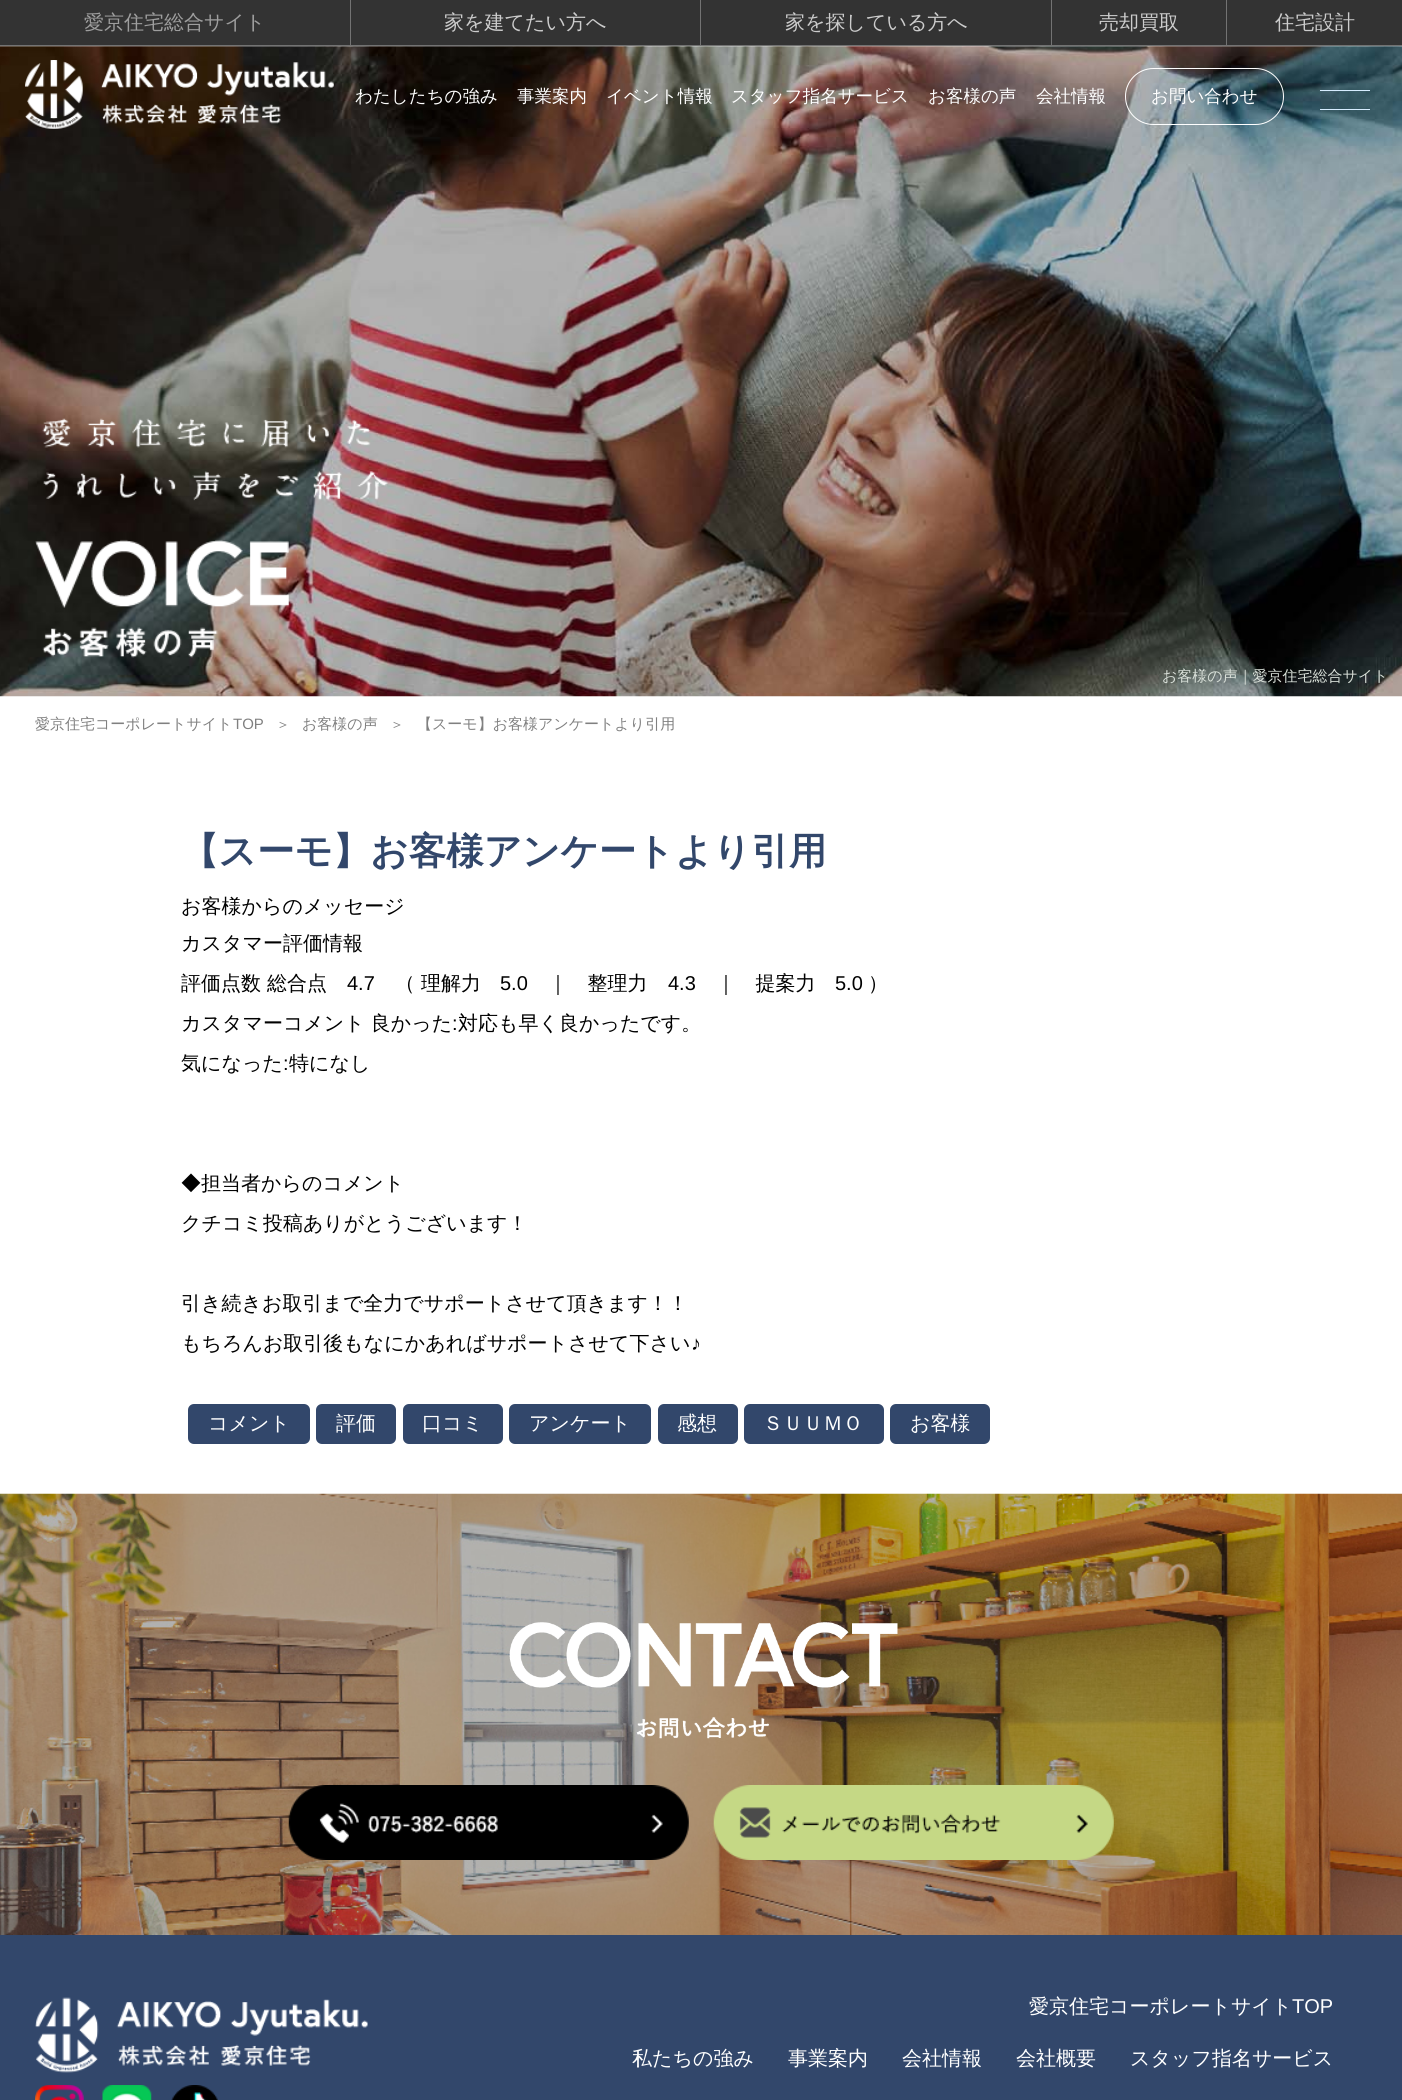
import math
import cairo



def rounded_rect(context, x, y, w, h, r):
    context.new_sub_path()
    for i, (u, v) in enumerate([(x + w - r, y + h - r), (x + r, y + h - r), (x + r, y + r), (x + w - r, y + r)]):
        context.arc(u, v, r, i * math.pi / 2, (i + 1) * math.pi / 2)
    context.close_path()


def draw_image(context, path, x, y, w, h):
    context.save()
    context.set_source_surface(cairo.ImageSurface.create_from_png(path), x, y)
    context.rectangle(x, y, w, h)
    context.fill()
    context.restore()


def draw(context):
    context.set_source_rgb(1, 1, 1)
    context.paint()
    context.set_source_rgb(51 / 255, 51 / 255, 51 / 255)
    context.rectangle(0, 0, 1402, 45)
    context.fill()
    context.set_source_rgb(115 / 255, 115 / 255, 115 / 255)
    context.rectangle(0, 45, 1402, 1)
    context.fill()
    context.rectangle(350, 0, 1, 45)
    context.fill()
    context.rectangle(700, 0, 1, 45)
    context.fill()
    context.rectangle(1051, 0, 1, 45)
    context.fill()
    context.rectangle(1226, 0, 1, 45)
    context.fill()
    draw_image(context, "images/2.png", 0, 46, 1402, 651)
    draw_image(context, "images/1.png", 25, 60, 309, 69)
    rounded_rect(context, 1125.5, 68.5, 158, 56, 28)
    context.set_source_rgb(1, 1, 1)
    context.set_line_width(1)
    context.stroke()
    context.set_source_rgb(215 / 255, 237 / 255, 1)
    context.rectangle(1320, 90, 50, 1)
    context.fill()
    context.rectangle(1320, 109, 50, 1)
    context.fill()
    draw_image(context, "images/3.png", 35, 418, 353, 240)
    context.set_source_rgb(50 / 255, 71 / 255, 107 / 255)
    rounded_rect(context, 188, 1404, 122, 40, 6)
    context.fill()
    rounded_rect(context, 316, 1404, 80, 40, 6)
    context.fill()
    rounded_rect(context, 403, 1404, 100, 40, 6)
    context.fill()
    rounded_rect(context, 509, 1404, 142, 40, 6)
    context.fill()
    rounded_rect(context, 658, 1404, 80, 40, 6)
    context.fill()
    rounded_rect(context, 744, 1404, 140, 40, 6)
    context.fill()
    rounded_rect(context, 890, 1404, 100, 40, 6)
    context.fill()
    draw_image(context, "images/4.png", 0, 1493, 1402, 442)
    draw_image(context, "images/5.png", 509, 1622, 389, 117)
    draw_image(context, "images/6.png", 288, 1785, 401, 75)
    draw_image(context, "images/7.png", 713, 1785, 401, 75)
    context.rectangle(0, 1935, 1402, 165)
    context.fill()
    draw_image(context, "images/8.png", 35, 1997, 333, 76)
    draw_image(context, "images/9.png", 35, 2085, 49, 15)
    draw_image(context, "images/10.png", 102, 2085, 50, 15)
    draw_image(context, "images/11.png", 171, 2085, 47, 15)
    context.select_font_face("WenQuanYi Zen Hei Medium")
    context.set_font_size(20)
    context.set_source_rgb(158 / 255, 158 / 255, 158 / 255)
    context.move_to(84, 29)
    context.show_text("愛京住宅総合サイト")
    context.set_source_rgb(204 / 255, 204 / 255, 204 / 255)
    context.move_to(444, 29)
    context.show_text("家を建てたい方へ")
    context.move_to(785, 29)
    context.show_text("家を探している方へ")
    context.move_to(1099, 29)
    context.show_text("売却買取")
    context.move_to(1275, 29)
    context.show_text("住宅設計")
    context.set_font_size(17.5)
    context.set_source_rgb(1, 1, 1)
    context.move_to(355, 102)
    context.show_text("わたしたちの強み")
    context.move_to(517, 102)
    context.show_text("事業案内")
    context.move_to(606, 102)
    context.show_text("イベント情報")
    context.move_to(731, 102)
    context.show_text("スタッフ指名サービス")
    context.move_to(928, 102)
    context.show_text("お客様の声")
    context.move_to(1036, 102)
    context.show_text("会社情報")
    context.move_to(1151, 102)
    context.show_text("お問い合わせ")
    context.set_font_size(15)
    context.set_source_rgb(217 / 255, 224 / 255, 217 / 255)
    context.move_to(1162, 681)
    context.show_text("お客様の声｜愛京住宅総合サイト")
    context.set_source_rgb(128 / 255, 128 / 255, 128 / 255)
    context.move_to(35, 729)
    context.show_text("愛京住宅コーポレートサイト")
    context.select_font_face("Liberation Sans")
    context.move_to(233, 729)
    context.show_text("TOP")
    context.select_font_face("WenQuanYi Zen Hei Medium")
    context.set_font_size(14)
    context.move_to(276, 729)
    context.show_text("＞")
    context.set_font_size(15)
    context.move_to(302, 729)
    context.show_text("お客様の声")
    context.set_font_size(14)
    context.move_to(390, 729)
    context.show_text("＞")
    context.set_font_size(15)
    context.move_to(417, 729)
    context.show_text("【スーモ】お客様アンケートより引用")
    context.select_font_face("WenQuanYi Zen Hei", cairo.FontSlant.NORMAL, cairo.FontWeight.BOLD)
    context.set_font_size(37.5)
    context.set_source_rgb(50 / 255, 71 / 255, 107 / 255)
    context.move_to(181, 864)
    context.show_text("【スーモ】お客様アンケートより引用")
    context.select_font_face("WenQuanYi Zen Hei Medium")
    context.set_font_size(20)
    context.set_source_rgb(0, 0, 0)
    context.move_to(181, 913)
    context.show_text("お客様からのメッセージ")
    context.move_to(181, 950)
    context.show_text("カスタマー評価情報")
    context.move_to(181, 990)
    context.show_text("評価点数 総合点")
    context.select_font_face("Liberation Sans")
    context.move_to(347, 990)
    context.show_text("4.7")
    context.select_font_face("WenQuanYi Zen Hei Medium")
    context.move_to(395, 990)
    context.show_text("（ 理解力")
    context.select_font_face("Liberation Sans")
    context.move_to(500, 990)
    context.show_text("5.0")
    context.select_font_face("WenQuanYi Zen Hei Medium")
    context.move_to(548, 990)
    context.show_text("｜　整理力")
    context.select_font_face("Liberation Sans")
    context.move_to(668, 990)
    context.show_text("4.3")
    context.select_font_face("WenQuanYi Zen Hei Medium")
    context.move_to(716, 990)
    context.show_text("｜　提案力")
    context.select_font_face("Liberation Sans")
    context.move_to(835, 990)
    context.show_text("5.0")
    context.select_font_face("WenQuanYi Zen Hei Medium")
    context.move_to(868, 990)
    context.show_text("）")
    context.move_to(181, 1030)
    context.show_text("カスタマーコメント 良かった")
    context.select_font_face("Liberation Sans")
    context.move_to(452, 1030)
    context.show_text(":")
    context.select_font_face("WenQuanYi Zen Hei Medium")
    context.move_to(458, 1030)
    context.show_text("対応も早く良かったです。")
    context.move_to(181, 1070)
    context.show_text("気になった")
    context.select_font_face("Liberation Sans")
    context.move_to(283, 1070)
    context.show_text(":")
    context.select_font_face("WenQuanYi Zen Hei Medium")
    context.move_to(289, 1070)
    context.show_text("特になし")
    context.move_to(181, 1190)
    context.show_text("◆担当者からのコメント")
    context.move_to(181, 1230)
    context.show_text("クチコミ投稿ありがとうございます！")
    context.move_to(181, 1310)
    context.show_text("引き続きお取引まで全力でサポートさせて頂きます！！")
    context.move_to(181, 1350)
    context.show_text("もちろんお取引後もなにかあればサポートさせて下さい")
    context.select_font_face("Liberation Sans")
    context.move_to(691, 1350)
    context.show_text("♪")
    context.select_font_face("WenQuanYi Zen Hei Medium")
    context.set_source_rgb(1, 1, 1)
    context.move_to(208, 1430)
    context.show_text("コメント")
    context.move_to(336, 1430)
    context.show_text("評価")
    context.move_to(422, 1430)
    context.show_text("口コミ")
    context.move_to(529, 1430)
    context.show_text("アンケート")
    context.move_to(677, 1430)
    context.show_text("感想")
    context.move_to(763, 1430)
    context.show_text("ＳＵＵＭＯ")
    context.move_to(910, 1430)
    context.show_text("お客様")
    context.move_to(1029, 2013)
    context.show_text("愛京住宅コーポレートサイト")
    context.select_font_face("Liberation Sans")
    context.move_to(1292, 2013)
    context.show_text("TOP")
    context.select_font_face("WenQuanYi Zen Hei Medium")
    context.move_to(632, 2065)
    context.show_text("私たちの強み")
    context.move_to(788, 2065)
    context.show_text("事業案内")
    context.move_to(902, 2065)
    context.show_text("会社情報")
    context.move_to(1016, 2065)
    context.show_text("会社概要")
    context.move_to(1130, 2065)
    context.show_text("スタッフ指名サービス")


surface = cairo.ImageSurface(cairo.Format.RGB24, 1402, 2100)
context = cairo.Context(surface)
options = cairo.FontOptions()
options.set_hint_metrics(cairo.HintMetrics.OFF)
options.set_hint_style(cairo.HintStyle.NONE)
context.set_font_options(options)
context.set_miter_limit(4)
draw(context)
surface.write_to_png("out.png")
